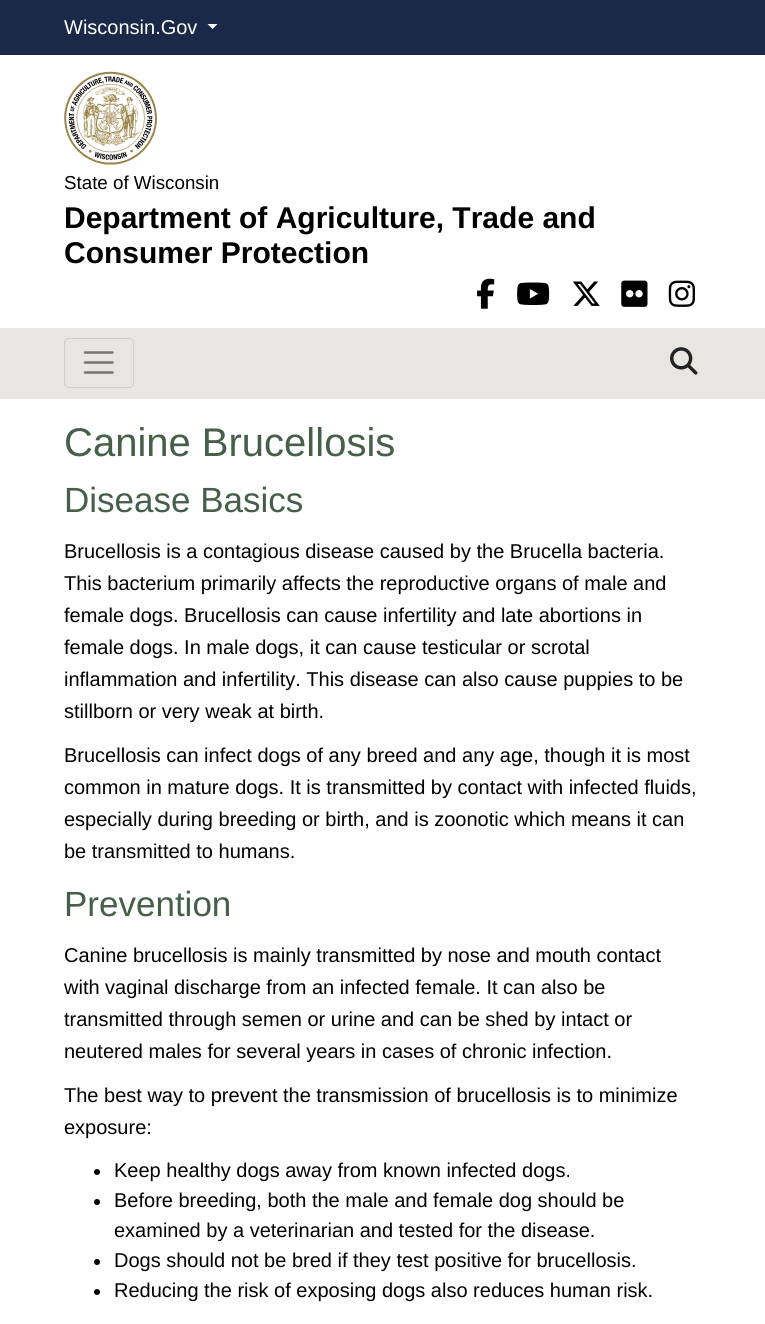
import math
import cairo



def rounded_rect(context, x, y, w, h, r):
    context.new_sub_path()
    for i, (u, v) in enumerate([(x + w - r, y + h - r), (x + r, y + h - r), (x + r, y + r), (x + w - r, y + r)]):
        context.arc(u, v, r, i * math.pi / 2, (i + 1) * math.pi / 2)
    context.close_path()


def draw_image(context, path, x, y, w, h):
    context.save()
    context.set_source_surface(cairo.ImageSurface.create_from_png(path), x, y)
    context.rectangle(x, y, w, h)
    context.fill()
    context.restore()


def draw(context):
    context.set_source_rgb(1, 1, 1)
    context.paint()
    context.set_source_rgb(25 / 255, 41 / 255, 71 / 255)
    context.rectangle(0, 0, 765, 55)
    context.fill()
    context.set_source_rgb(1, 1, 1)
    context.new_path()
    context.move_to(207.5, 24)
    context.line_to(217.5, 24)
    context.line_to(212.5, 29)
    context.close_path()
    context.fill()
    draw_image(context, "images/1.png", 64, 71, 93, 94)
    draw_image(context, "images/2.png", 477, 278, 18, 31)
    draw_image(context, "images/3.png", 517, 282, 33, 23)
    draw_image(context, "images/4.png", 572, 281, 28, 25)
    draw_image(context, "images/5.png", 621, 280, 27, 27)
    draw_image(context, "images/6.png", 668, 280, 27, 27)
    context.set_source_rgb(231 / 255, 230 / 255, 224 / 255)
    context.rectangle(0, 328, 765, 71)
    context.fill()
    rounded_rect(context, 64.5, 338.5, 69, 49, 4.5)
    context.set_source_rgb(208 / 255, 207 / 255, 202 / 255)
    context.set_line_width(1)
    context.stroke()
    context.new_path()
    context.move_to(85, 352.5)
    context.line_to(112.5, 352.5)
    context.move_to(85, 362.5)
    context.line_to(112.5, 362.5)
    context.move_to(85, 372.5)
    context.line_to(112.5, 372.5)
    context.set_source_rgb(116 / 255, 115 / 255, 112 / 255)
    context.set_line_width(2.5)
    context.set_line_cap(cairo.LineCap.ROUND)
    context.stroke()
    draw_image(context, "images/7.png", 670, 347, 28, 28)
    context.set_source_rgb(0, 0, 0)
    context.arc(97, 1172, 3, 0, 2 * math.pi)
    context.fill()
    context.arc(97, 1202, 3, 0, 2 * math.pi)
    context.fill()
    context.arc(97, 1262, 3, 0, 2 * math.pi)
    context.fill()
    context.arc(97, 1292, 3, 0, 2 * math.pi)
    context.fill()
    context.select_font_face("Liberation Sans")
    context.set_font_size(20)
    context.set_source_rgb(1, 1, 1)
    context.move_to(64, 34)
    context.show_text("Wisconsin.Gov")
    context.set_font_size(18.75)
    context.set_source_rgb(0, 0, 0)
    context.move_to(64, 189)
    context.show_text("State of Wisconsin")
    context.select_font_face("Liberation Sans", cairo.FontSlant.NORMAL, cairo.FontWeight.BOLD)
    context.set_font_size(30)
    context.move_to(64, 228)
    context.show_text("Department of Agriculture, Trade and")
    context.move_to(64, 263)
    context.show_text("Consumer Protection")
    context.select_font_face("Liberation Sans")
    context.set_font_size(40)
    context.set_source_rgb(69 / 255, 95 / 255, 73 / 255)
    context.move_to(64, 456)
    context.show_text("Canine Brucellosis")
    context.set_font_size(35)
    context.move_to(64, 512)
    context.show_text("Disease Basics")
    context.set_font_size(20)
    context.set_source_rgb(0, 0, 0)
    context.move_to(64, 558)
    context.show_text("Brucellosis is a contagious disease caused by the Brucella bacteria.")
    context.move_to(64, 590)
    context.show_text("This bacterium primarily affects the reproductive organs of male and")
    context.move_to(64, 622)
    context.show_text("female dogs. Brucellosis can cause infertility and late abortions in")
    context.move_to(64, 654)
    context.show_text("female dogs. In male dogs, it can cause testicular or scrotal")
    context.move_to(64, 686)
    context.show_text("inflammation and infertility. This disease can also cause puppies to be")
    context.move_to(64, 718)
    context.show_text("stillborn or very weak at birth.")
    context.move_to(64, 762)
    context.show_text("Brucellosis can infect dogs of any breed and any age, though it is most")
    context.move_to(64, 794)
    context.show_text("common in mature dogs. It is transmitted by contact with infected fluids,")
    context.move_to(64, 826)
    context.show_text("especially during breeding or birth, and is zoonotic which means it can")
    context.move_to(64, 858)
    context.show_text("be transmitted to humans.")
    context.set_font_size(35)
    context.set_source_rgb(69 / 255, 95 / 255, 73 / 255)
    context.move_to(64, 916)
    context.show_text("Prevention")
    context.set_font_size(20)
    context.set_source_rgb(0, 0, 0)
    context.move_to(64, 962)
    context.show_text("Canine brucellosis is mainly transmitted by nose and mouth contact")
    context.move_to(64, 994)
    context.show_text("with vaginal discharge from an infected female. It can also be")
    context.move_to(64, 1026)
    context.show_text("transmitted through semen or urine and can be shed by intact or")
    context.move_to(64, 1058)
    context.show_text("neutered males for several years in cases of chronic infection.")
    context.move_to(64, 1102)
    context.show_text("The best way to prevent the transmission of brucellosis is to minimize")
    context.move_to(64, 1134)
    context.show_text("exposure:")
    context.move_to(114, 1177)
    context.show_text("Keep healthy dogs away from known infected dogs.")
    context.move_to(114, 1207)
    context.show_text("Before breeding, both the male and female dog should be")
    context.move_to(114, 1237)
    context.show_text("examined by a veterinarian and tested for the disease.")
    context.move_to(114, 1267)
    context.show_text("Dogs should not be bred if they test positive for brucellosis.")
    context.move_to(114, 1297)
    context.show_text("Reducing the risk of exposing dogs also reduces human risk.")


surface = cairo.ImageSurface(cairo.Format.RGB24, 765, 1324)
context = cairo.Context(surface)
options = cairo.FontOptions()
options.set_hint_metrics(cairo.HintMetrics.OFF)
options.set_hint_style(cairo.HintStyle.NONE)
context.set_font_options(options)
context.set_miter_limit(4)
draw(context)
surface.write_to_png("out.png")
